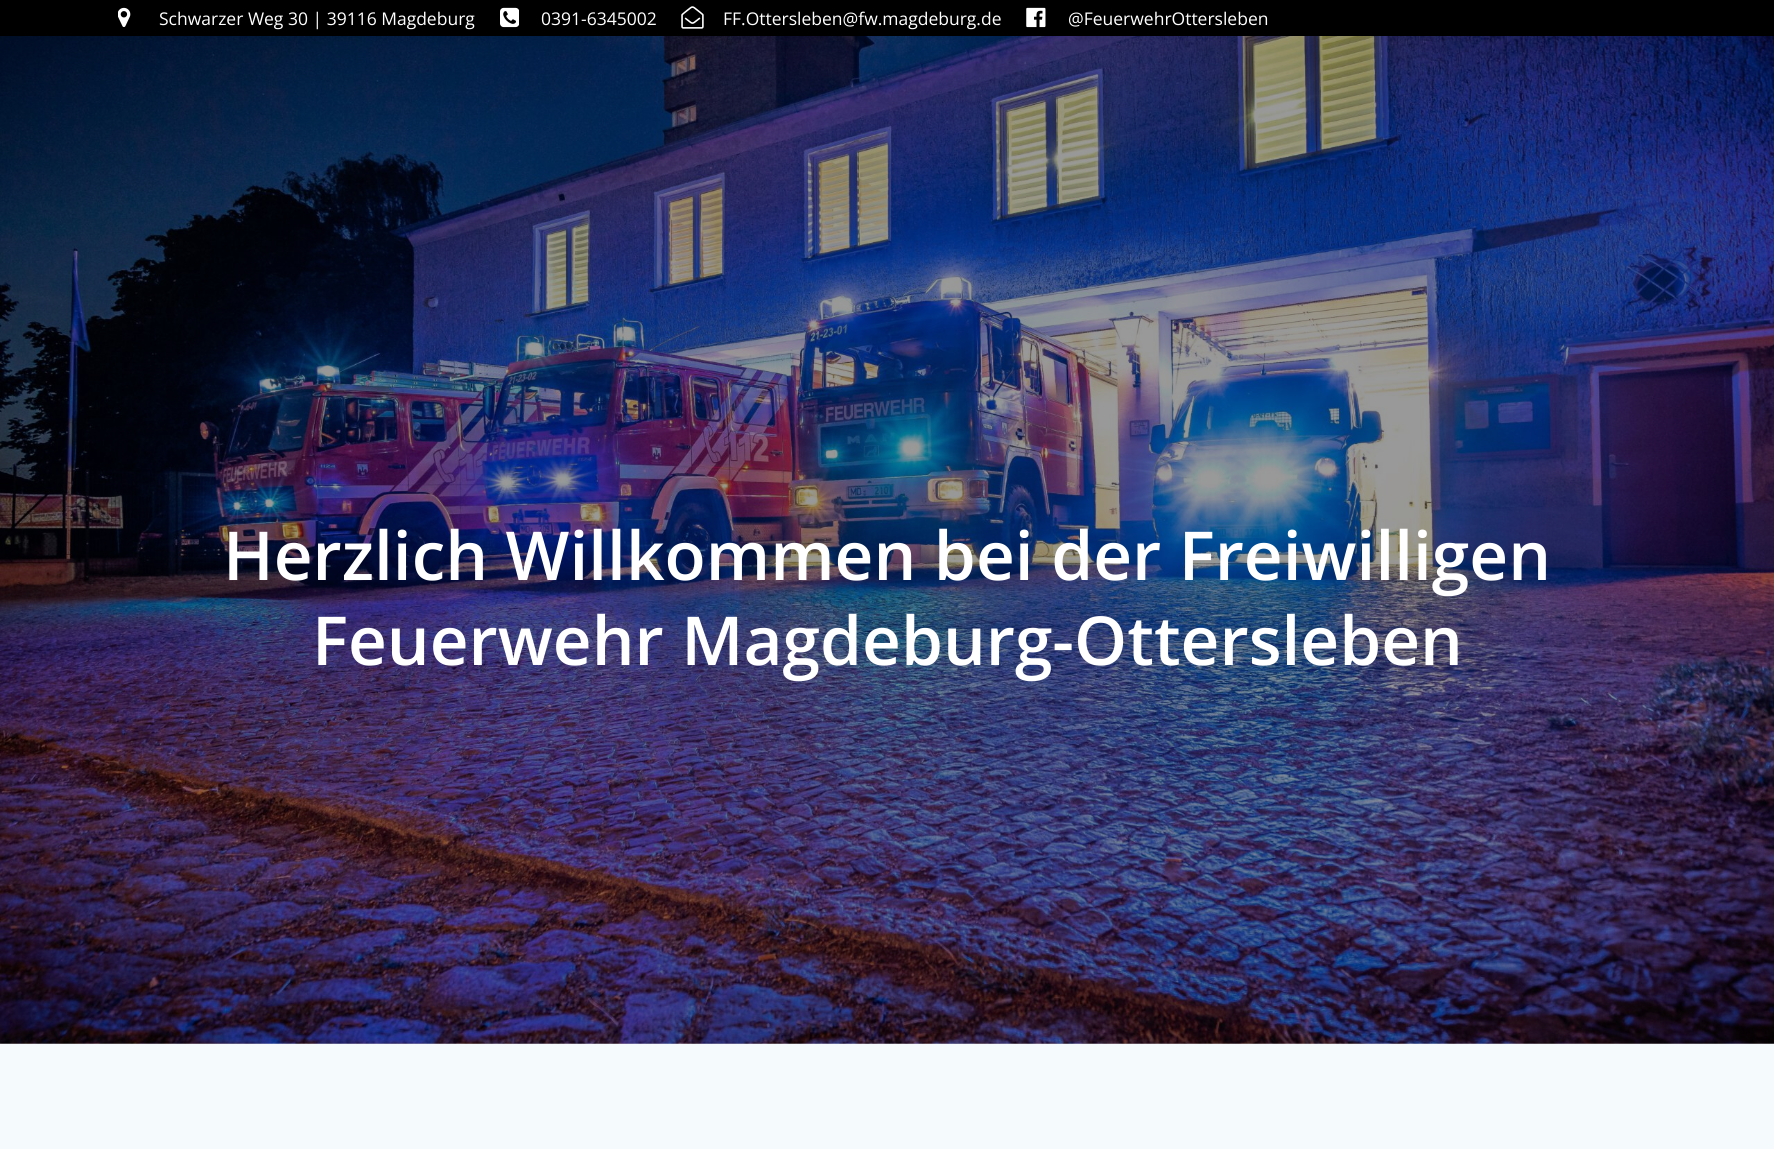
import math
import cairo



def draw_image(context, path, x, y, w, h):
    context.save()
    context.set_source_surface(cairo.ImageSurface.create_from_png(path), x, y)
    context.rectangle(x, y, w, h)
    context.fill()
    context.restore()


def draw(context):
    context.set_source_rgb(1, 1, 1)
    context.paint()
    context.set_source_rgb(0, 0, 0)
    context.rectangle(0, 0, 1774, 36)
    context.fill()
    draw_image(context, "images/1.png", 118, 7, 13, 20)
    draw_image(context, "images/2.png", 500, 7, 19, 21)
    draw_image(context, "images/3.png", 681, 6, 23, 23)
    draw_image(context, "images/4.png", 1026, 7, 20, 21)
    draw_image(context, "images/5.png", 0, 36, 1774, 1008)
    context.set_source_rgb(245 / 255, 250 / 255, 253 / 255)
    context.rectangle(0, 1044, 1774, 105)
    context.fill()
    context.select_font_face("Open Sans")
    context.set_font_size(17.5)
    context.set_source_rgb(1, 1, 1)
    context.move_to(159, 25)
    context.show_text("Schwarzer Weg 30 | 39116 Magdeburg")
    context.move_to(541, 25)
    context.show_text("0391-6345002")
    context.move_to(723, 25)
    context.show_text("FF.Ottersleben@fw.magdeburg.de")
    context.move_to(1068, 25)
    context.show_text("@FeuerwehrOttersleben")
    context.select_font_face("Open Sans SemiBold")
    context.set_font_size(67.5)
    context.move_to(223, 580)
    context.show_text("Herzlich Willkommen bei der Freiwilligen")
    context.move_to(312, 665)
    context.show_text("Feuerwehr Magdeburg-Ottersleben")


surface = cairo.ImageSurface(cairo.Format.RGB24, 1774, 1149)
context = cairo.Context(surface)
options = cairo.FontOptions()
options.set_hint_metrics(cairo.HintMetrics.OFF)
options.set_hint_style(cairo.HintStyle.NONE)
context.set_font_options(options)
context.set_miter_limit(4)
draw(context)
surface.write_to_png("out.png")
